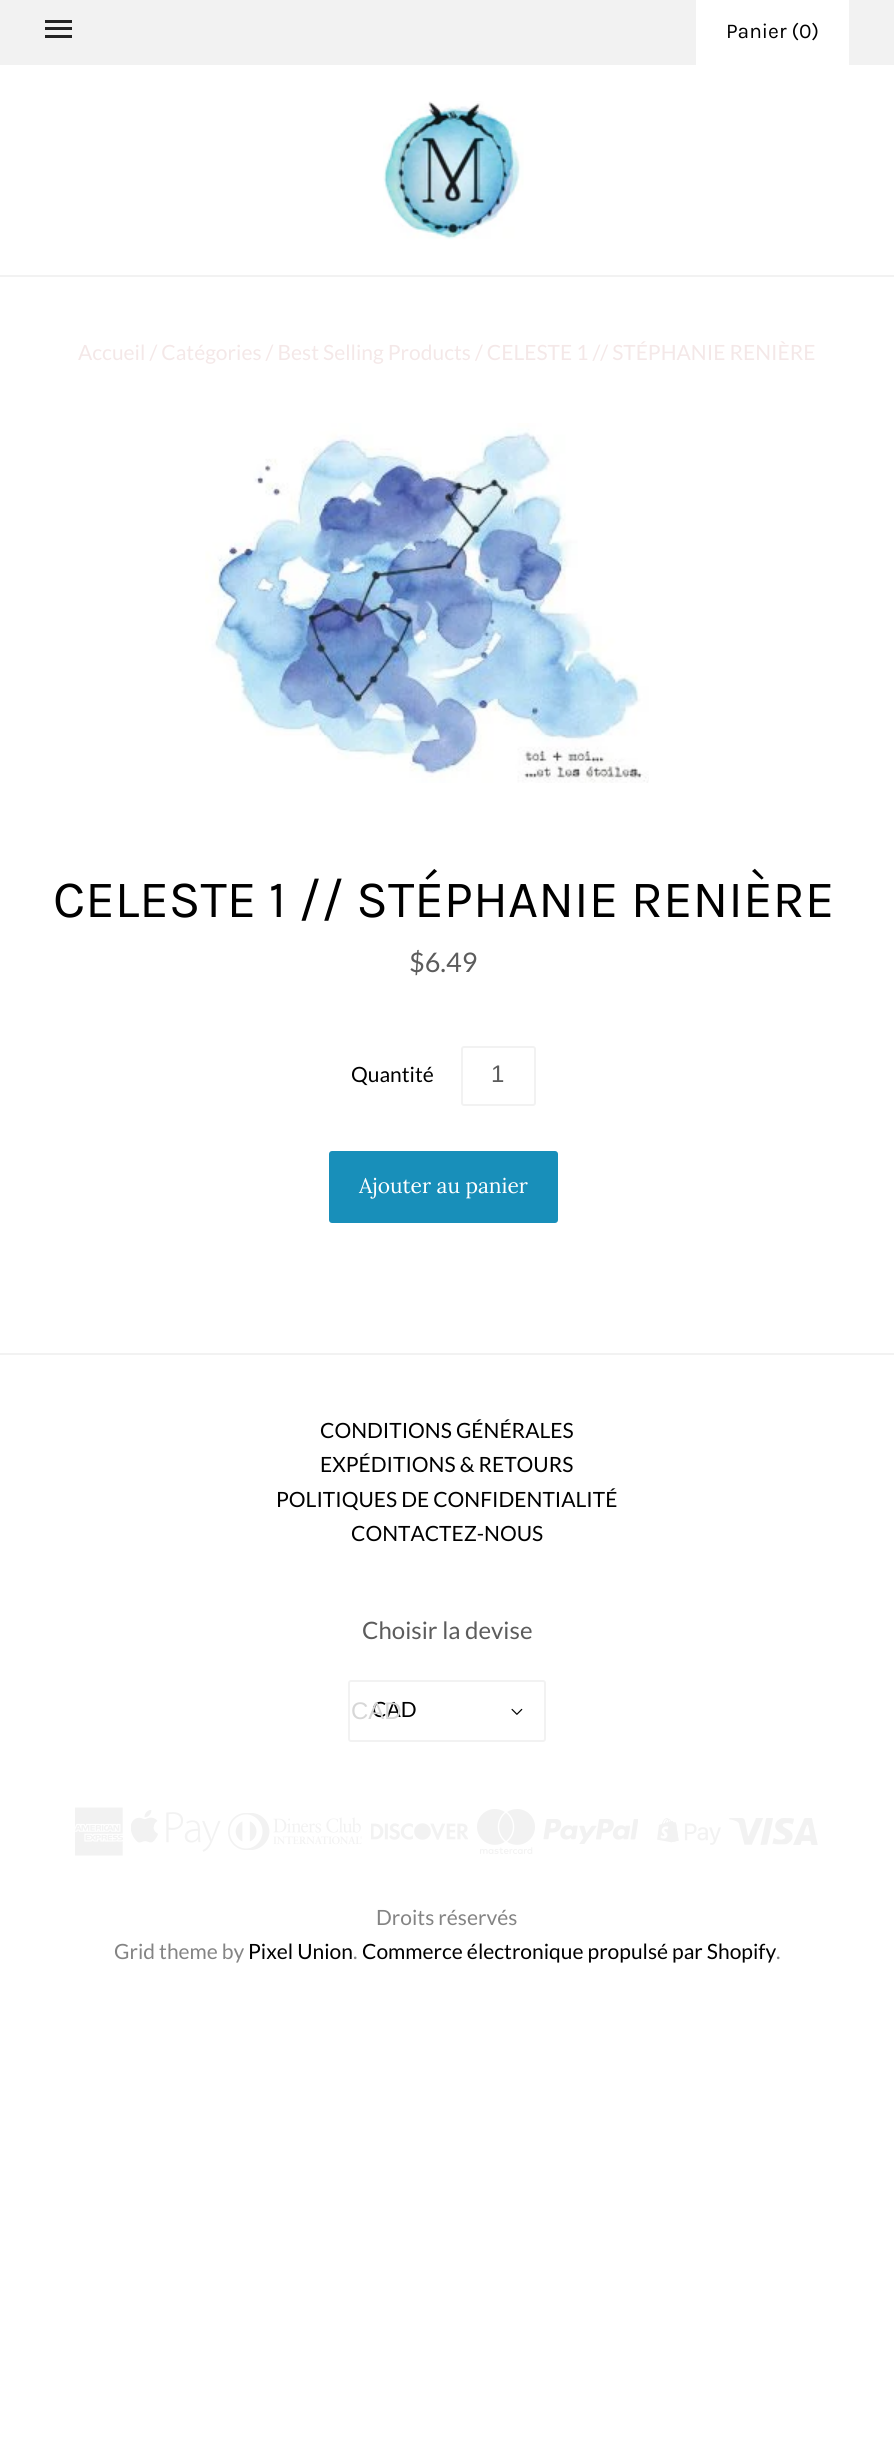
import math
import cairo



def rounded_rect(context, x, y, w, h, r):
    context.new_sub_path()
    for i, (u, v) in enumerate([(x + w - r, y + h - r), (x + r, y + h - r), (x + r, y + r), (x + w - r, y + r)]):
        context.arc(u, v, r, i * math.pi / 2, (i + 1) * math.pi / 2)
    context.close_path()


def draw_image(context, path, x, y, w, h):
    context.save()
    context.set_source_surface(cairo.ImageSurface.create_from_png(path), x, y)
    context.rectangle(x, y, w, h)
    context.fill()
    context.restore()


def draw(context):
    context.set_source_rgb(1, 1, 1)
    context.paint()
    context.set_source_rgb(242 / 255, 242 / 255, 242 / 255)
    context.rectangle(0, 0, 894, 65)
    context.fill()
    context.set_source_rgb(36 / 255, 36 / 255, 36 / 255)
    context.rectangle(45, 27, 27, 3)
    context.fill()
    context.rectangle(45, 20, 27, 3)
    context.fill()
    context.rectangle(45, 35, 27, 3)
    context.fill()
    context.set_source_rgb(1, 1, 1)
    context.rectangle(696, 0, 153, 65)
    context.fill()
    context.set_source_rgb(242 / 255, 242 / 255, 242 / 255)
    context.rectangle(0, 275, 894, 2)
    context.fill()
    draw_image(context, "images/1.png", 383, 101, 141, 139)
    draw_image(context, "images/2.png", 205, 423, 444, 360)
    rounded_rect(context, 462, 1047, 73, 58, 2)
    context.stroke()
    context.set_source_rgb(24 / 255, 143 / 255, 186 / 255)
    rounded_rect(context, 329, 1151, 229, 72, 3)
    context.fill()
    context.set_source_rgb(242 / 255, 242 / 255, 242 / 255)
    context.rectangle(0, 1353, 894, 2)
    context.fill()
    rounded_rect(context, 349, 1681, 196, 60, 2)
    context.stroke()
    draw_image(context, "images/3.png", 511, 1708, 12, 7)
    draw_image(context, "images/4.png", 75, 1807, 48, 49)
    draw_image(context, "images/5.png", 131, 1810, 90, 42)
    draw_image(context, "images/6.png", 228, 1813, 134, 37)
    draw_image(context, "images/7.png", 371, 1823, 97, 17)
    draw_image(context, "images/8.png", 477, 1809, 58, 45)
    draw_image(context, "images/9.png", 543, 1819, 95, 25)
    draw_image(context, "images/10.png", 657, 1818, 64, 27)
    draw_image(context, "images/11.png", 729, 1818, 89, 27)
    context.select_font_face("Karla")
    context.set_font_size(21)
    context.set_source_rgb(0, 0, 0)
    context.move_to(726, 38)
    context.show_text("Panier (0)")
    context.select_font_face("Lato")
    context.set_source_rgb(244 / 255, 232 / 255, 232 / 255)
    context.move_to(78, 360)
    context.show_text("Accueil / Catégories / Best Selling Products / CELESTE 1 // STÉPHANIE RENIÈRE")
    context.select_font_face("Karla")
    context.set_font_size(52.5)
    context.set_source_rgb(0, 0, 0)
    context.move_to(53, 917)
    context.show_text("CELESTE 1 // STÉPHANIE RENIÈRE")
    context.select_font_face("Lato")
    context.set_font_size(27)
    context.set_source_rgb(92 / 255, 92 / 255, 92 / 255)
    context.move_to(409, 972)
    context.show_text("$6.49")
    context.set_font_size(21)
    context.set_source_rgb(0, 0, 0)
    context.move_to(351, 1082)
    context.show_text("Quantité")
    context.select_font_face("Liberation Sans")
    context.set_font_size(24)
    context.set_source_rgb(92 / 255, 92 / 255, 92 / 255)
    context.move_to(491, 1082)
    context.show_text("1")
    context.select_font_face("Lora")
    context.set_font_size(21)
    context.set_source_rgb(1, 1, 1)
    context.move_to(359, 1193)
    context.show_text("Ajouter au panier")
    context.select_font_face("Lato")
    context.set_source_rgb(0, 0, 0)
    context.move_to(320, 1438)
    context.show_text("CONDITIONS GÉNÉRALES")
    context.move_to(320, 1472)
    context.show_text("EXPÉDITIONS & RETOURS")
    context.move_to(276, 1507)
    context.show_text("POLITIQUES DE CONFIDENTIALITÉ")
    context.move_to(351, 1541)
    context.show_text("CONTACTEZ-NOUS")
    context.set_font_size(24)
    context.set_source_rgb(92 / 255, 92 / 255, 92 / 255)
    context.move_to(362, 1639)
    context.show_text("Choisir la devise")
    context.set_font_size(21)
    context.set_source_rgb(0, 0, 0)
    context.move_to(372, 1717)
    context.show_text("CAD")
    context.select_font_face("Liberation Sans")
    context.set_font_size(24)
    context.set_source_rgb(215 / 255, 215 / 255, 215 / 255)
    context.move_to(351, 1719)
    context.show_text("CAD")
    context.select_font_face("Lato")
    context.set_font_size(21)
    context.set_source_rgb(132 / 255, 132 / 255, 132 / 255)
    context.move_to(376, 1925)
    context.show_text("Droits réservés")
    context.move_to(114, 1959)
    context.show_text("Grid theme by")
    context.set_source_rgb(0, 0, 0)
    context.move_to(248, 1959)
    context.show_text("Pixel Union")
    context.set_source_rgb(132 / 255, 132 / 255, 132 / 255)
    context.move_to(353, 1959)
    context.show_text(".")
    context.set_source_rgb(0, 0, 0)
    context.move_to(362, 1959)
    context.show_text("Commerce électronique propulsé par Shopify")
    context.set_source_rgb(132 / 255, 132 / 255, 132 / 255)
    context.move_to(776, 1959)
    context.show_text(".")


surface = cairo.ImageSurface(cairo.Format.RGB24, 894, 2464)
context = cairo.Context(surface)
options = cairo.FontOptions()
options.set_hint_metrics(cairo.HintMetrics.OFF)
options.set_hint_style(cairo.HintStyle.NONE)
context.set_font_options(options)
context.set_miter_limit(4)
draw(context)
surface.write_to_png("out.png")
